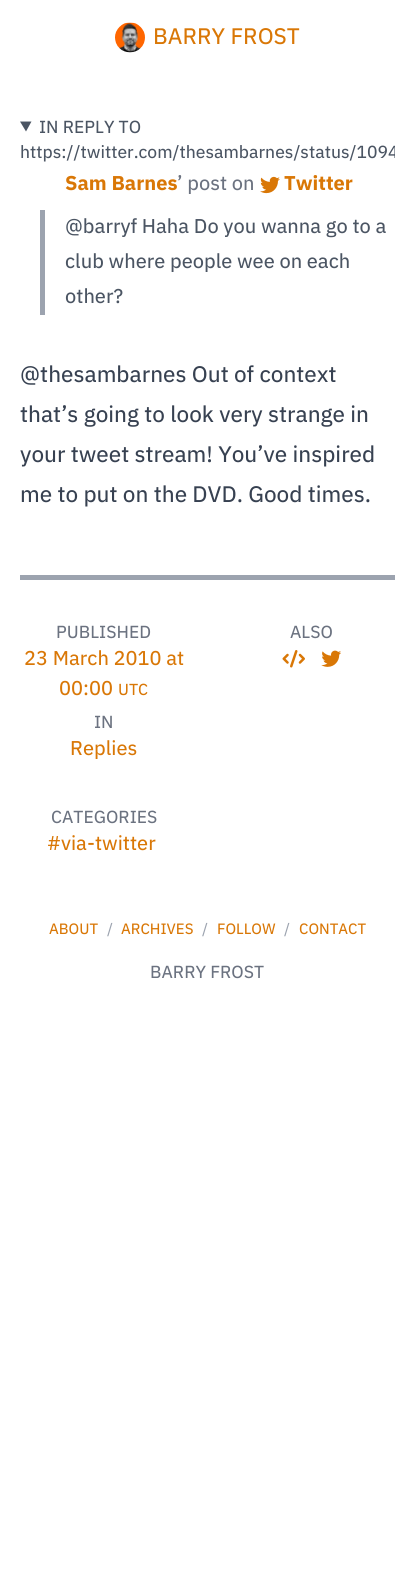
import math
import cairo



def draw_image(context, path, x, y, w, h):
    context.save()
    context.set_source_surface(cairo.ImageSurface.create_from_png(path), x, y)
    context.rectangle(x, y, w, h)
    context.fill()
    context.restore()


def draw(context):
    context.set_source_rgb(1, 1, 1)
    context.paint()
    draw_image(context, "images/1.png", 115, 22, 30, 31)
    context.set_source_rgb(75 / 255, 85 / 255, 99 / 255)
    context.new_path()
    context.move_to(20, 121.5)
    context.line_to(31.5, 121.5)
    context.line_to(26, 131.5)
    context.close_path()
    context.fill()
    draw_image(context, "images/2.png", 260, 176, 20, 18)
    context.set_source_rgb(156 / 255, 163 / 255, 175 / 255)
    context.rectangle(40, 210, 5, 105)
    context.fill()
    context.rectangle(20, 575, 375, 5)
    context.fill()
    draw_image(context, "images/3.png", 282, 650, 23, 18)
    draw_image(context, "images/4.png", 321, 650, 20, 17)
    context.select_font_face("IBM Plex Sans")
    context.set_font_size(22.5)
    context.set_source_rgb(217 / 255, 119 / 255, 6 / 255)
    context.move_to(153, 44)
    context.show_text("BARRY FROST")
    context.set_font_size(17.5)
    context.set_source_rgb(75 / 255, 85 / 255, 99 / 255)
    context.move_to(39, 133)
    context.show_text("IN REPLY TO")
    context.save()
    context.rectangle(20, 115, 375, 50)
    context.clip()
    context.move_to(20, 158)
    context.show_text("https://twitter.com/thesambarnes/status/1094")
    context.restore()
    context.select_font_face("IBM Plex Sans", cairo.FontSlant.NORMAL, cairo.FontWeight.BOLD)
    context.set_font_size(20)
    context.set_source_rgb(217 / 255, 119 / 255, 6 / 255)
    context.move_to(65, 190)
    context.show_text("Sam Barnes")
    context.select_font_face("IBM Plex Sans")
    context.set_source_rgb(107 / 255, 114 / 255, 128 / 255)
    context.move_to(177, 190)
    context.show_text("’ post on")
    context.select_font_face("IBM Plex Sans", cairo.FontSlant.NORMAL, cairo.FontWeight.BOLD)
    context.set_source_rgb(217 / 255, 119 / 255, 6 / 255)
    context.move_to(284, 190)
    context.show_text("Twitter")
    context.select_font_face("IBM Plex Sans")
    context.set_source_rgb(75 / 255, 85 / 255, 99 / 255)
    context.move_to(65, 233)
    context.show_text("@barryf Haha Do you wanna go to a")
    context.move_to(65, 268)
    context.show_text("club where people wee on each")
    context.move_to(65, 303)
    context.show_text("other?")
    context.set_font_size(22.5)
    context.set_source_rgb(55 / 255, 65 / 255, 81 / 255)
    context.move_to(20, 382)
    context.show_text("@thesambarnes Out of context")
    context.move_to(20, 422)
    context.show_text("that’s going to look very strange in")
    context.move_to(20, 462)
    context.show_text("your tweet stream! You’ve inspired")
    context.move_to(20, 502)
    context.show_text("me to put on the DVD. Good times.")
    context.set_font_size(17.5)
    context.set_source_rgb(107 / 255, 114 / 255, 128 / 255)
    context.move_to(56, 638)
    context.show_text("PUBLISHED")
    context.set_font_size(20)
    context.set_source_rgb(217 / 255, 119 / 255, 6 / 255)
    context.move_to(24, 665)
    context.show_text("23 March 2010 at")
    context.move_to(59, 695)
    context.show_text("00:00")
    context.set_font_size(16)
    context.move_to(118, 695)
    context.show_text("UTC")
    context.set_font_size(17.5)
    context.set_source_rgb(107 / 255, 114 / 255, 128 / 255)
    context.move_to(94, 728)
    context.show_text("IN")
    context.set_font_size(20)
    context.set_source_rgb(217 / 255, 119 / 255, 6 / 255)
    context.move_to(70, 755)
    context.show_text("Replies")
    context.set_font_size(17.5)
    context.set_source_rgb(107 / 255, 114 / 255, 128 / 255)
    context.move_to(290, 638)
    context.show_text("ALSO")
    context.move_to(51, 823)
    context.show_text("CATEGORIES")
    context.set_font_size(20)
    context.set_source_rgb(217 / 255, 119 / 255, 6 / 255)
    context.move_to(47, 850)
    context.show_text("#via-twitter")
    context.set_font_size(15)
    context.move_to(49, 934)
    context.show_text("ABOUT")
    context.set_source_rgb(156 / 255, 163 / 255, 175 / 255)
    context.move_to(107, 934)
    context.show_text("/")
    context.set_source_rgb(217 / 255, 119 / 255, 6 / 255)
    context.move_to(121, 934)
    context.show_text("ARCHIVES")
    context.set_source_rgb(156 / 255, 163 / 255, 175 / 255)
    context.move_to(202, 934)
    context.show_text("/")
    context.set_source_rgb(217 / 255, 119 / 255, 6 / 255)
    context.move_to(217, 934)
    context.show_text("FOLLOW")
    context.set_source_rgb(156 / 255, 163 / 255, 175 / 255)
    context.move_to(284, 934)
    context.show_text("/")
    context.set_source_rgb(217 / 255, 119 / 255, 6 / 255)
    context.move_to(299, 934)
    context.show_text("CONTACT")
    context.set_font_size(17.5)
    context.set_source_rgb(107 / 255, 114 / 255, 128 / 255)
    context.move_to(150, 978)
    context.show_text("BARRY FROST")


surface = cairo.ImageSurface(cairo.Format.RGB24, 414, 1582)
context = cairo.Context(surface)
options = cairo.FontOptions()
options.set_hint_metrics(cairo.HintMetrics.OFF)
options.set_hint_style(cairo.HintStyle.NONE)
context.set_font_options(options)
context.set_miter_limit(4)
draw(context)
surface.write_to_png("out.png")
